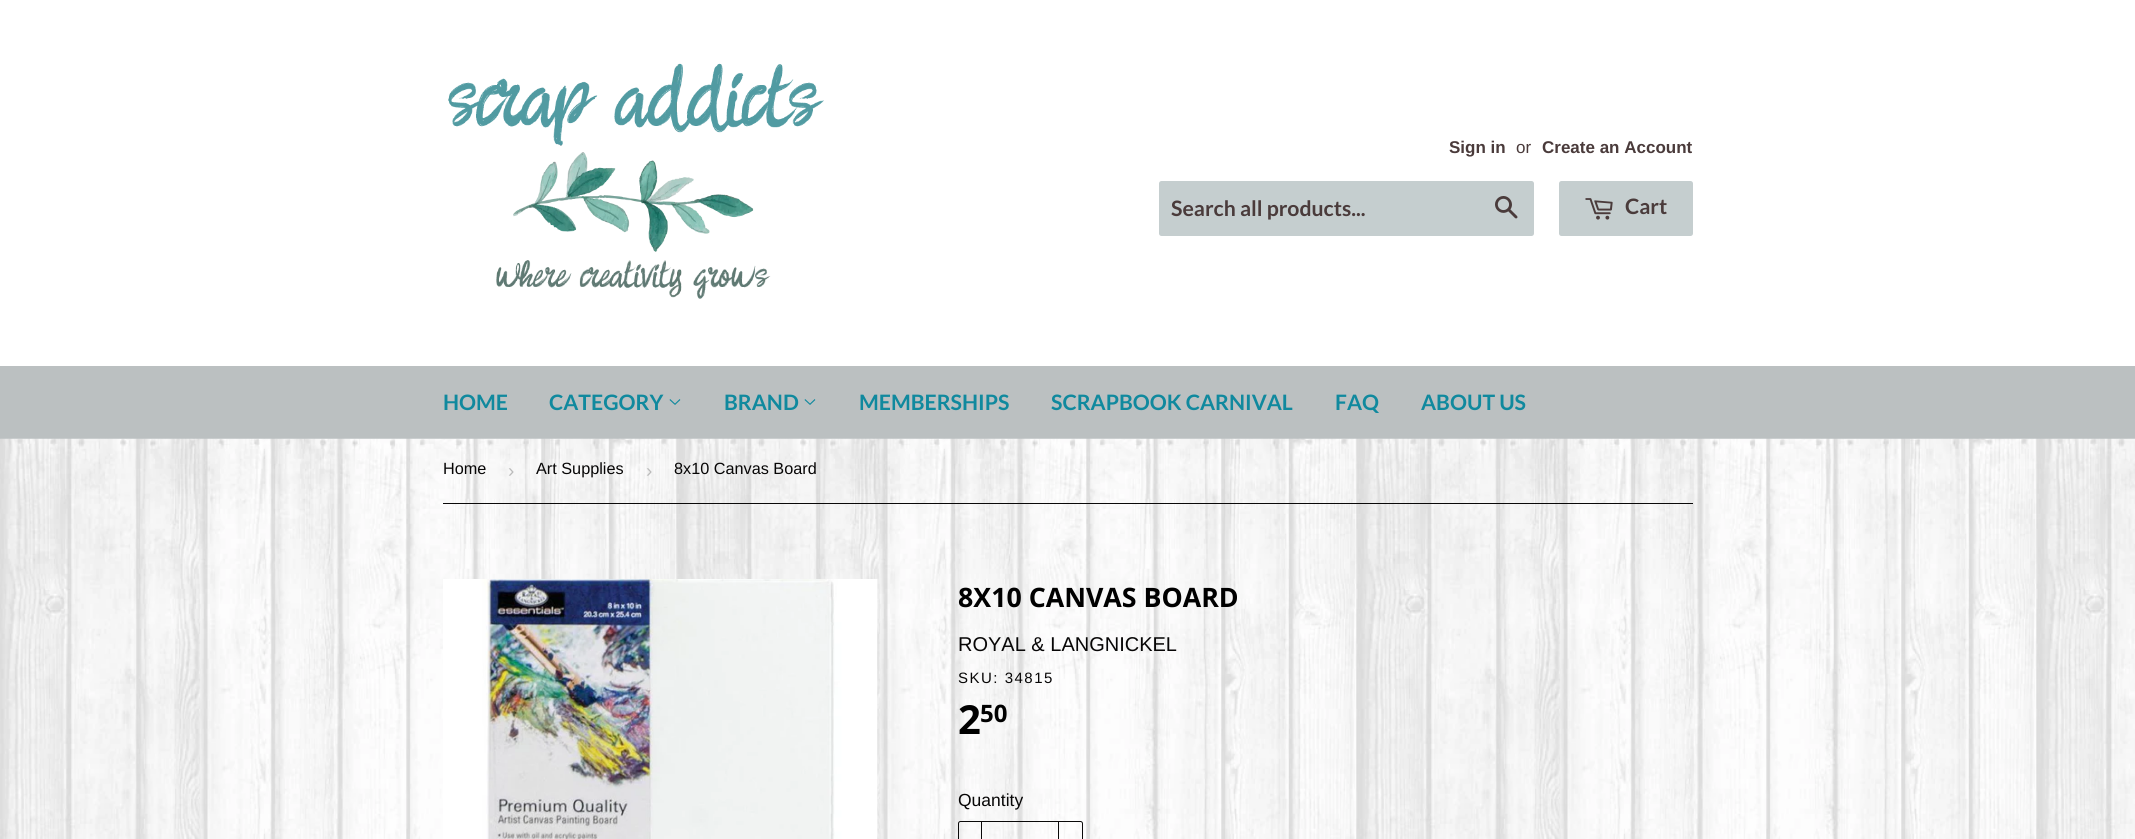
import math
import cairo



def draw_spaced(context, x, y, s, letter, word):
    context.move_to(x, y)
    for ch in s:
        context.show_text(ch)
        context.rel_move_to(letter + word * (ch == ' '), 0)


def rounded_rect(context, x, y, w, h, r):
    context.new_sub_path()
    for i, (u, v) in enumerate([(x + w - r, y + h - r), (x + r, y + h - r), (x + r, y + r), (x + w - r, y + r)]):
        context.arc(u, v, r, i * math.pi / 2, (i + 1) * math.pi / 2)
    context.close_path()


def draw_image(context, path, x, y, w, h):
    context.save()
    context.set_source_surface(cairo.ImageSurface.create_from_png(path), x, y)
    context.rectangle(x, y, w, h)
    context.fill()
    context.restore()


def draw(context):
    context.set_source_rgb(1, 1, 1)
    context.paint()
    draw_image(context, "images/1.png", 448, 63, 376, 236)
    context.set_source_rgb(197 / 255, 206 / 255, 207 / 255)
    rounded_rect(context, 1159, 181, 375, 55, 2.5)
    context.fill()
    draw_image(context, "images/2.png", 1495, 196, 23, 23)
    rounded_rect(context, 1559, 181, 134, 55, 2.5)
    context.fill()
    draw_image(context, "images/3.png", 1585, 198, 28, 22)
    context.set_source_rgb(187 / 255, 192 / 255, 193 / 255)
    context.rectangle(0, 366, 2135, 73)
    context.fill()
    draw_image(context, "images/4.png", 669, 399, 12, 6)
    draw_image(context, "images/4.png", 804, 399, 12, 6)
    draw_image(context, "images/5.png", 0, 438, 2135, 401)
    context.set_source_rgb(10 / 255, 9 / 255, 9 / 255)
    context.rectangle(443, 503, 1250, 1)
    context.fill()
    draw_image(context, "images/6.png", 443, 579, 435, 260)
    rounded_rect(context, 958.5, 821.5, 124, 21, 2)
    context.set_line_width(1)
    context.stroke()
    context.rectangle(981, 821, 1, 18)
    context.fill()
    context.rectangle(1058, 821, 1, 18)
    context.fill()
    context.select_font_face("Liberation Sans", cairo.FontSlant.NORMAL, cairo.FontWeight.BOLD)
    context.set_font_size(17)
    context.set_source_rgb(74 / 255, 59 / 255, 59 / 255)
    context.move_to(1449, 153)
    context.show_text("Sign in")
    context.select_font_face("Liberation Sans")
    context.move_to(1516, 153)
    context.show_text("or")
    context.select_font_face("Liberation Sans", cairo.FontSlant.NORMAL, cairo.FontWeight.BOLD)
    context.move_to(1542, 153)
    context.show_text("Create an Account")
    context.select_font_face("Lato", cairo.FontSlant.NORMAL, cairo.FontWeight.BOLD)
    context.set_font_size(21.25)
    context.move_to(1171, 216)
    context.show_text("Search all products...")
    context.move_to(1625, 214)
    context.show_text("Cart")
    context.set_source_rgb(16 / 255, 137 / 255, 158 / 255)
    context.move_to(443, 410)
    context.show_text("HOME")
    context.move_to(549, 410)
    context.show_text("CATEGORY")
    context.move_to(724, 410)
    context.show_text("BRAND")
    context.move_to(859, 410)
    context.show_text("MEMBERSHIPS")
    context.move_to(1051, 410)
    context.show_text("SCRAPBOOK CARNIVAL")
    context.move_to(1335, 410)
    context.show_text("FAQ")
    context.move_to(1421, 410)
    context.show_text("ABOUT US")
    context.select_font_face("Liberation Sans")
    context.set_font_size(16.25)
    context.set_source_rgb(7 / 255, 6 / 255, 6 / 255)
    context.move_to(443, 474)
    context.show_text("Home")
    context.set_font_size(19)
    context.set_source_rgb(187 / 255, 187 / 255, 187 / 255)
    context.move_to(508, 477)
    context.show_text("›")
    context.set_font_size(16.25)
    context.set_source_rgb(7 / 255, 6 / 255, 6 / 255)
    context.move_to(536, 474)
    context.show_text("Art Supplies")
    context.set_font_size(19)
    context.set_source_rgb(187 / 255, 187 / 255, 187 / 255)
    context.move_to(646, 477)
    context.show_text("›")
    context.set_font_size(16.25)
    context.set_source_rgb(7 / 255, 6 / 255, 6 / 255)
    context.move_to(674, 474)
    context.show_text("8x10 Canvas Board")
    context.select_font_face("Open Sans", cairo.FontSlant.NORMAL, cairo.FontWeight.BOLD)
    context.set_font_size(26.75)
    context.set_source_rgb(0, 0, 0)
    context.move_to(958, 607)
    context.show_text("8X10 CANVAS BOARD")
    context.select_font_face("Liberation Sans")
    context.set_font_size(20)
    context.set_source_rgb(7 / 255, 6 / 255, 6 / 255)
    context.move_to(958, 651)
    context.show_text("ROYAL & LANGNICKEL")
    context.set_font_size(15)
    draw_spaced(context, 958, 683, "SKU: 34815", 1.5, 0)
    context.select_font_face("Open Sans", cairo.FontSlant.NORMAL, cairo.FontWeight.BOLD)
    context.set_font_size(40)
    context.set_source_rgb(0, 0, 0)
    context.move_to(958, 734)
    context.show_text("2")
    context.set_font_size(24)
    context.move_to(980, 722)
    context.show_text("50")
    context.select_font_face("Liberation Sans")
    context.set_font_size(17.5)
    context.set_source_rgb(7 / 255, 6 / 255, 6 / 255)
    context.move_to(958, 806)
    context.show_text("Quantity")


surface = cairo.ImageSurface(cairo.Format.RGB24, 2135, 839)
context = cairo.Context(surface)
options = cairo.FontOptions()
options.set_hint_metrics(cairo.HintMetrics.OFF)
options.set_hint_style(cairo.HintStyle.NONE)
context.set_font_options(options)
context.set_miter_limit(4)
draw(context)
surface.write_to_png("out.png")
